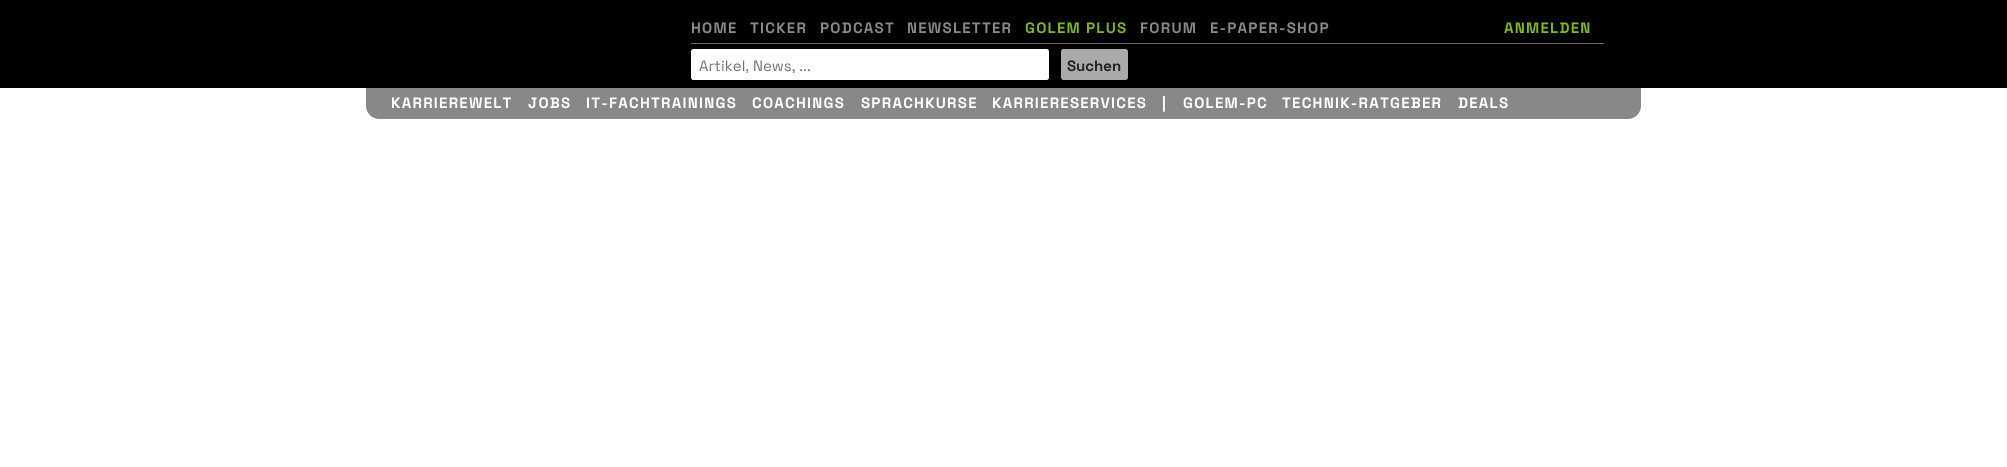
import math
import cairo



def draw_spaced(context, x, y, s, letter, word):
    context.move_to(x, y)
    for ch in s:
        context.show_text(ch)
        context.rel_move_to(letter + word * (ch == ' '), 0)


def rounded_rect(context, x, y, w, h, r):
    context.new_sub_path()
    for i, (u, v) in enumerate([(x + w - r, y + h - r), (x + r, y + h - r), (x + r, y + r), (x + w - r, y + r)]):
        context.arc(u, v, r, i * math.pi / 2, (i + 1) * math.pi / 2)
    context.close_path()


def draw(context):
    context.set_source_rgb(1, 1, 1)
    context.paint()
    context.set_source_rgb(0, 0, 0)
    context.rectangle(0, 0, 2007, 88)
    context.fill()
    context.set_source_rgb(102 / 255, 102 / 255, 102 / 255)
    context.rectangle(691, 43, 913, 1)
    context.fill()
    context.set_source_rgb(1, 1, 1)
    rounded_rect(context, 691.5, 49.5, 357, 30, 2)
    context.fill_preserve()
    context.set_line_width(1)
    context.stroke()
    context.set_source_rgb(170 / 255, 170 / 255, 170 / 255)
    rounded_rect(context, 1061, 49, 67, 31, 2.5)
    context.fill()
    context.set_source_rgb(136 / 255, 136 / 255, 136 / 255)
    context.new_path()
    context.move_to(366, 88)
    context.line_to(1641, 88)
    context.line_to(1641, 106)
    context.curve_to(1641, 113, 1635, 119, 1628, 119)
    context.line_to(379, 119)
    context.curve_to(372, 119, 366, 113, 366, 106)
    context.close_path()
    context.fill()
    context.select_font_face("Space Grotesk", cairo.FontSlant.NORMAL, cairo.FontWeight.BOLD)
    context.set_font_size(15)
    draw_spaced(context, 691, 33, "HOME", 1.25, 0)
    draw_spaced(context, 750, 33, "TICKER", 1.25, 0)
    draw_spaced(context, 820, 33, "PODCAST", 1.25, 0)
    draw_spaced(context, 907, 33, "NEWSLETTER", 1.25, 0)
    context.set_source_rgb(127 / 255, 183 / 255, 30 / 255)
    draw_spaced(context, 1025, 33, "GOLEM PLUS", 1.25, 0)
    context.set_source_rgb(136 / 255, 136 / 255, 136 / 255)
    draw_spaced(context, 1140, 33, "FORUM", 1.25, 0)
    draw_spaced(context, 1210, 33, "E-PAPER-SHOP", 1.25, 0)
    context.set_source_rgb(127 / 255, 183 / 255, 30 / 255)
    draw_spaced(context, 1504, 33, "ANMELDEN", 1.25, 0)
    context.select_font_face("Space Grotesk")
    context.set_source_rgb(117 / 255, 117 / 255, 117 / 255)
    context.move_to(699, 71)
    context.show_text("Artikel, News, ...")
    context.select_font_face("Space Grotesk", cairo.FontSlant.NORMAL, cairo.FontWeight.BOLD)
    context.set_source_rgb(34 / 255, 34 / 255, 34 / 255)
    context.move_to(1067, 71)
    context.show_text("Suchen")
    context.set_source_rgb(1, 1, 1)
    draw_spaced(context, 391, 108, "KARRIEREWELT", 1.25, 0)
    draw_spaced(context, 528, 108, "JOBS", 1.25, 0)
    draw_spaced(context, 586, 108, "IT-FACHTRAININGS", 1.25, 0)
    draw_spaced(context, 752, 108, "COACHINGS", 1.25, 0)
    draw_spaced(context, 861, 108, "SPRACHKURSE", 1.25, 0)
    draw_spaced(context, 992, 108, "KARRIERESERVICES", 1.25, 0)
    draw_spaced(context, 1162, 108, "|", 1.25, 0)
    draw_spaced(context, 1183, 108, "GOLEM-PC", 1.25, 0)
    draw_spaced(context, 1282, 108, "TECHNIK-RATGEBER", 1.25, 0)
    draw_spaced(context, 1458, 108, "DEALS", 1.25, 0)


surface = cairo.ImageSurface(cairo.Format.RGB24, 2007, 467)
context = cairo.Context(surface)
options = cairo.FontOptions()
options.set_hint_metrics(cairo.HintMetrics.OFF)
options.set_hint_style(cairo.HintStyle.NONE)
context.set_font_options(options)
context.set_miter_limit(4)
draw(context)
surface.write_to_png("out.png")
